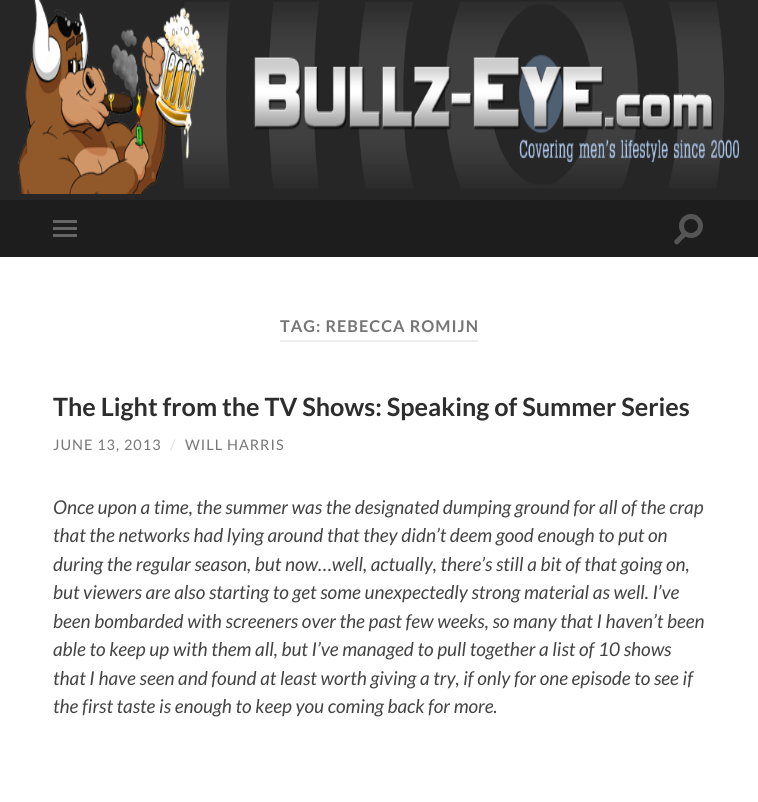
import math
import cairo



def draw_spaced(context, x, y, s, letter, word):
    context.move_to(x, y)
    for ch in s:
        context.show_text(ch)
        context.rel_move_to(letter + word * (ch == ' '), 0)


def draw_image(context, path, x, y, w, h):
    context.save()
    context.set_source_surface(cairo.ImageSurface.create_from_png(path), x, y)
    context.rectangle(x, y, w, h)
    context.fill()
    context.restore()


def draw(context):
    context.set_source_rgb(1, 1, 1)
    context.paint()
    context.set_source_rgb(38 / 255, 38 / 255, 38 / 255)
    context.rectangle(0, 0, 758, 200)
    context.fill()
    draw_image(context, "images/1.png", 18, 0, 721, 194)
    context.set_source_rgb(29 / 255, 29 / 255, 29 / 255)
    context.rectangle(0, 200, 758, 57)
    context.fill()
    context.set_source_rgb(102 / 255, 102 / 255, 102 / 255)
    context.rectangle(53, 220, 24, 3)
    context.fill()
    context.rectangle(53, 227, 24, 3)
    context.fill()
    context.rectangle(53, 234, 24, 3)
    context.fill()
    context.set_source_rgb(85 / 255, 85 / 255, 85 / 255)
    context.arc(691, 226, 12, 0, 2 * math.pi)
    context.fill()
    context.set_source_rgb(29 / 255, 29 / 255, 29 / 255)
    context.arc(691, 226, 7, 0, 2 * math.pi)
    context.fill()
    context.set_source_rgb(85 / 255, 85 / 255, 85 / 255)
    context.new_path()
    context.move_to(674.5, 240.5)
    context.line_to(683, 232)
    context.line_to(686.5, 235.5)
    context.line_to(681, 241)
    context.curve_to(679, 243, 677, 246.5, 674.5, 243)
    context.curve_to(674, 242, 674, 241, 674.5, 240.5)
    context.close_path()
    context.fill()
    context.set_source_rgb(238 / 255, 238 / 255, 238 / 255)
    context.rectangle(280, 340, 198, 2)
    context.fill()
    context.select_font_face("Lato", cairo.FontSlant.NORMAL, cairo.FontWeight.BOLD)
    context.set_font_size(16.25)
    context.set_source_rgb(118 / 255, 118 / 255, 118 / 255)
    draw_spaced(context, 280, 332, "TAG: REBECCA ROMIJN", 1, 0)
    context.set_font_size(25.2)
    context.set_source_rgb(45 / 255, 45 / 255, 45 / 255)
    context.move_to(53, 416)
    context.show_text("The Light from the TV Shows: Speaking of Summer Series")
    context.select_font_face("Lato")
    context.set_font_size(14.5)
    context.set_source_rgb(118 / 255, 118 / 255, 118 / 255)
    draw_spaced(context, 53, 450, "JUNE 13, 2013", 1, 0)
    context.set_source_rgb(221 / 255, 221 / 255, 221 / 255)
    draw_spaced(context, 170, 450, "/", 1, 0)
    context.set_source_rgb(118 / 255, 118 / 255, 118 / 255)
    draw_spaced(context, 185, 450, "WILL HARRIS", 1, 0)
    context.select_font_face("Lato", cairo.FontSlant.ITALIC)
    context.set_font_size(19)
    context.set_source_rgb(68 / 255, 68 / 255, 68 / 255)
    context.move_to(53, 514)
    context.show_text("Once upon a time, the summer was the designated dumping ground for all of the crap")
    context.move_to(53, 542)
    context.show_text("that the networks had lying around that they didn’t deem good enough to put on")
    context.move_to(53, 571)
    context.show_text("during the regular season, but now…well, actually, there’s still a bit of that going on,")
    context.move_to(53, 599)
    context.show_text("but viewers are also starting to get some unexpectedly strong material as well. I’ve")
    context.move_to(53, 628)
    context.show_text("been bombarded with screeners over the past few weeks, so many that I haven’t been")
    context.move_to(53, 656)
    context.show_text("able to keep up with them all, but I’ve managed to pull together a list of 10 shows")
    context.move_to(53, 685)
    context.show_text("that I have seen and found at least worth giving a try, if only for one episode to see if")
    context.move_to(53, 713)
    context.show_text("the first taste is enough to keep you coming back for more.")


surface = cairo.ImageSurface(cairo.Format.RGB24, 758, 802)
context = cairo.Context(surface)
options = cairo.FontOptions()
options.set_hint_metrics(cairo.HintMetrics.OFF)
options.set_hint_style(cairo.HintStyle.NONE)
context.set_font_options(options)
context.set_miter_limit(4)
draw(context)
surface.write_to_png("out.png")
